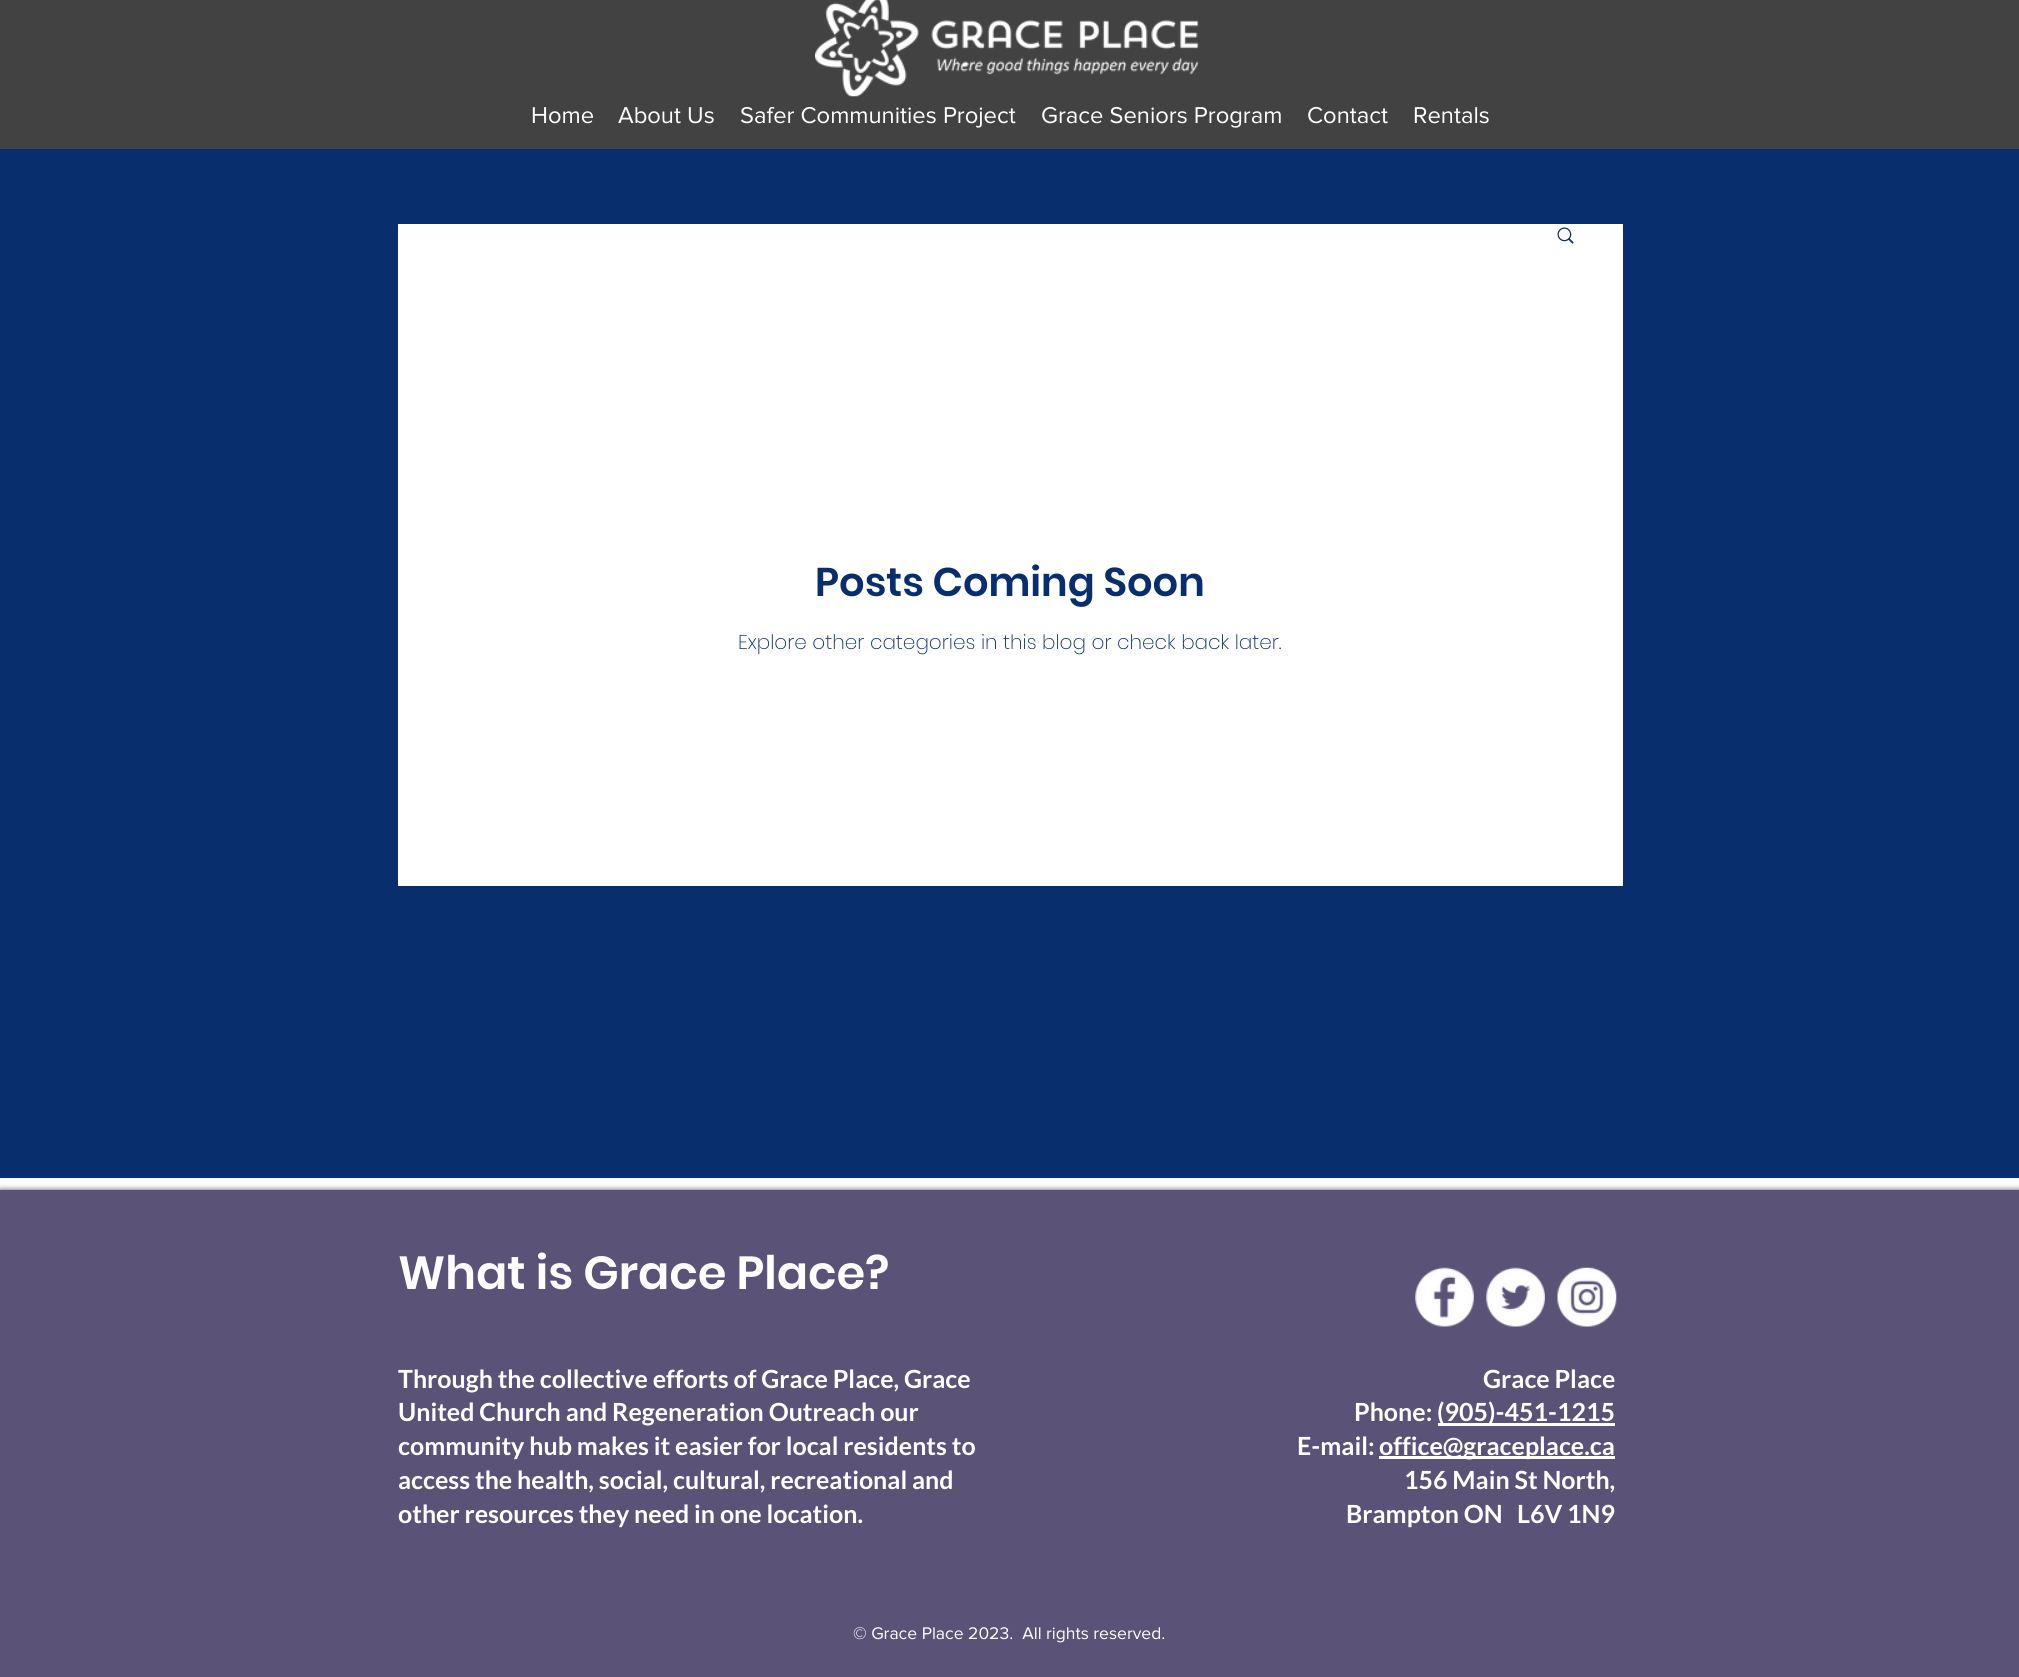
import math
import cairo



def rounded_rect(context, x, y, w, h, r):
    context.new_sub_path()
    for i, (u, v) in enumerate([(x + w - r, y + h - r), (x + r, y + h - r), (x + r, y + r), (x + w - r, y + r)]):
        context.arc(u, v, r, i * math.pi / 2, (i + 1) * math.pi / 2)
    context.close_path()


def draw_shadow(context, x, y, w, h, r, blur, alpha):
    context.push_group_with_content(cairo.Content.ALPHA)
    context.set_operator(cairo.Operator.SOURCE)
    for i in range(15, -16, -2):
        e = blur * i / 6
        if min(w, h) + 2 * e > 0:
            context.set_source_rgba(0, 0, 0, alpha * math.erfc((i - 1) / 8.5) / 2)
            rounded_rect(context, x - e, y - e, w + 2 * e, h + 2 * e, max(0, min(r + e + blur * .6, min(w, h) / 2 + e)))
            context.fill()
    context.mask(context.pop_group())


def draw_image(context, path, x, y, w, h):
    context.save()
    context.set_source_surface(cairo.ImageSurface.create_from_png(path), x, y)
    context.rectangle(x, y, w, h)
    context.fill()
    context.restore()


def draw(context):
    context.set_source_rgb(1, 1, 1)
    context.paint()
    context.set_source_rgb(66 / 255, 66 / 255, 66 / 255)
    context.rectangle(0, 0, 2019, 149)
    context.fill()
    draw_image(context, "images/1.png", 815, 0, 384, 97)
    context.set_source_rgb(9 / 255, 46 / 255, 110 / 255)
    context.rectangle(0, 149, 2019, 1029)
    context.fill()
    context.set_source_rgb(1, 1, 1)
    context.rectangle(398, 224, 1225, 662)
    context.fill()
    draw_image(context, "images/2.png", 1557, 227, 17, 17)
    context.set_source_rgb(0, 0, 0)
    draw_shadow(context, 0, 1190, 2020, 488, 0, 3, 0.7)
    context.set_source_rgb(90 / 255, 82 / 255, 119 / 255)
    context.rectangle(0, 1190, 2019, 487)
    context.fill()
    draw_image(context, "images/3.png", 1415, 1267, 59, 60)
    draw_image(context, "images/4.png", 1486, 1267, 59, 60)
    draw_image(context, "images/5.png", 1557, 1267, 60, 60)
    context.set_source_rgb(1, 1, 1)
    context.rectangle(1438, 1423, 177, 3)
    context.fill()
    context.rectangle(1379, 1456, 236, 3)
    context.fill()
    context.select_font_face("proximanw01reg")
    context.set_font_size(23.75)
    context.move_to(531, 123)
    context.show_text("Home")
    context.move_to(618, 123)
    context.show_text("About Us")
    context.move_to(740, 123)
    context.show_text("Safer Communities Project")
    context.move_to(1041, 123)
    context.show_text("Grace Seniors Program")
    context.move_to(1307, 123)
    context.show_text("Contact")
    context.move_to(1413, 123)
    context.show_text("Rentals")
    context.select_font_face("Poppins SemiBold")
    context.set_font_size(40)
    context.set_source_rgb(9 / 255, 46 / 255, 110 / 255)
    context.move_to(815, 596)
    context.show_text("Posts Coming Soon")
    context.select_font_face("Poppins ExtraLight")
    context.set_font_size(20)
    context.move_to(738, 649)
    context.show_text("Explore other categories in this blog or check back later.")
    context.select_font_face("Poppins SemiBold")
    context.set_font_size(46.25)
    context.set_source_rgb(1, 1, 1)
    context.move_to(398, 1289)
    context.show_text("What is Grace Place?")
    context.select_font_face("Lato", cairo.FontSlant.NORMAL, cairo.FontWeight.BOLD)
    context.set_font_size(25)
    context.move_to(398, 1388)
    context.show_text("Through the collective efforts of Grace Place, Grace")
    context.move_to(398, 1421)
    context.show_text("United Church and Regeneration Outreach our")
    context.move_to(398, 1455)
    context.show_text("community hub makes it easier for local residents to")
    context.move_to(398, 1489)
    context.show_text("access the health, social, cultural, recreational and")
    context.move_to(398, 1523)
    context.show_text("other resources they need in one location.")
    context.move_to(1483, 1388)
    context.show_text("Grace Place")
    context.move_to(1354, 1421)
    context.show_text("Phone:")
    context.move_to(1437, 1421)
    context.show_text("(905)-451-1215")
    context.move_to(1297, 1455)
    context.show_text("E-mail:")
    context.move_to(1379, 1455)
    context.show_text("office@graceplace.ca")
    context.move_to(1404, 1489)
    context.show_text("156 Main St North,")
    context.move_to(1346, 1523)
    context.show_text("Brampton ON   L6V 1N9")
    context.select_font_face("proximanw01reg")
    context.set_font_size(17.5)
    context.move_to(853, 1639)
    context.show_text("© Grace Place 2023.  All rights reserved.")


surface = cairo.ImageSurface(cairo.Format.RGB24, 2019, 1677)
context = cairo.Context(surface)
options = cairo.FontOptions()
options.set_hint_metrics(cairo.HintMetrics.OFF)
options.set_hint_style(cairo.HintStyle.NONE)
context.set_font_options(options)
context.set_miter_limit(4)
draw(context)
surface.write_to_png("out.png")
